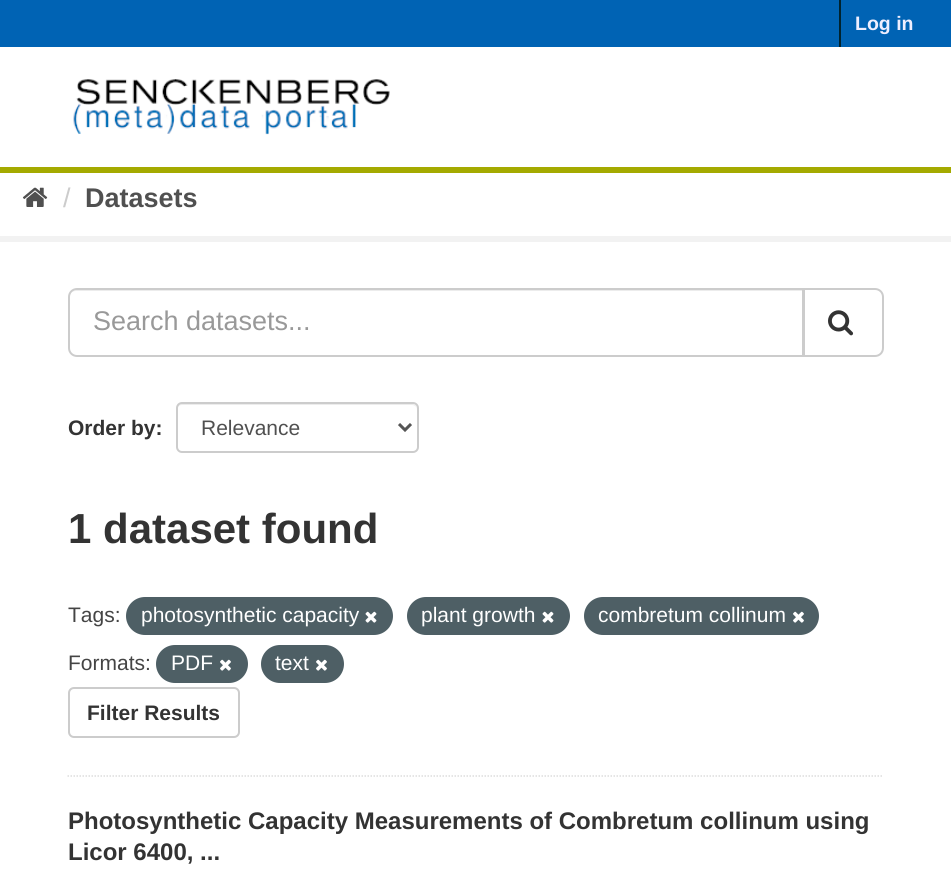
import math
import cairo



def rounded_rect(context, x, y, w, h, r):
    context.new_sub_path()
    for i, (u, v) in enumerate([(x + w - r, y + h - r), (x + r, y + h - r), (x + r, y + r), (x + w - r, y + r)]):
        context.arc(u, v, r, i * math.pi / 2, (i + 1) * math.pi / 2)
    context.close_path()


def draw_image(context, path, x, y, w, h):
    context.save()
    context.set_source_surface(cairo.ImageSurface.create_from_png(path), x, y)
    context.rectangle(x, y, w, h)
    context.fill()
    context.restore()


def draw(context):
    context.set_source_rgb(1, 1, 1)
    context.paint()
    context.set_source_rgb(0, 99 / 255, 180 / 255)
    context.rectangle(0, 0, 951, 47)
    context.fill()
    context.set_source_rgb(0, 35 / 255, 46 / 255)
    context.rectangle(839, 0, 2, 47)
    context.fill()
    context.set_source_rgb(164 / 255, 170 / 255, 0)
    context.rectangle(0, 167, 951, 6)
    context.fill()
    draw_image(context, "images/1.png", 73, 79, 317, 56)
    draw_image(context, "images/2.png", 22, 187, 26, 20)
    context.rectangle(-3, 239, 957, 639)
    context.set_source_rgb(242 / 255, 242 / 255, 242 / 255)
    context.set_line_width(6)
    context.stroke()
    context.new_path()
    context.move_to(67.5, 776)
    context.line_to(883.5, 776)
    context.set_source_rgb(221 / 255, 221 / 255, 221 / 255)
    context.set_line_width(1.5)
    context.set_dash([1.5, 1.5])
    context.stroke()
    context.set_source_rgb(236 / 255, 236 / 255, 236 / 255)
    context.new_path()
    context.move_to(76, 291)
    context.line_to(802, 291)
    context.line_to(802, 356)
    context.line_to(803, 356)
    context.line_to(803, 290)
    context.line_to(77, 290)
    context.curve_to(73, 290, 69, 294, 69, 298)
    context.curve_to(69, 294, 72, 291, 76, 291)
    context.close_path()
    context.fill()
    context.new_path()
    context.move_to(77, 289)
    context.line_to(803, 289)
    context.line_to(803, 356)
    context.line_to(77, 356)
    context.curve_to(72.5, 356, 69, 352.5, 69, 348)
    context.line_to(69, 297)
    context.curve_to(69, 292.5, 72.5, 289, 77, 289)
    context.close_path()
    context.set_source_rgb(204 / 255, 204 / 255, 204 / 255)
    context.set_line_width(2)
    context.set_dash([])
    context.stroke()
    context.set_source_rgb(1, 1, 1)
    context.new_path()
    context.move_to(804, 289)
    context.line_to(875, 289)
    context.curve_to(879.5, 289, 883, 292.5, 883, 297)
    context.line_to(883, 348)
    context.curve_to(883, 352.5, 879.5, 356, 875, 356)
    context.line_to(804, 356)
    context.close_path()
    context.fill_preserve()
    context.set_source_rgb(204 / 255, 204 / 255, 204 / 255)
    context.stroke()
    draw_image(context, "images/3.png", 828, 310, 26, 26)
    context.set_source_rgb(236 / 255, 236 / 255, 236 / 255)
    context.new_path()
    context.move_to(182, 405)
    context.line_to(412, 405)
    context.curve_to(415, 405, 417, 407, 417, 410)
    context.line_to(417, 409)
    context.curve_to(417, 406, 415, 404, 412, 404)
    context.line_to(182, 404)
    context.curve_to(179, 404, 177, 406, 177, 409)
    context.line_to(177, 410)
    context.curve_to(177, 407, 179, 405, 182, 405)
    context.close_path()
    context.fill()
    rounded_rect(context, 177, 403, 241, 49, 5)
    context.set_source_rgb(204 / 255, 204 / 255, 204 / 255)
    context.stroke()
    context.new_path()
    context.move_to(399, 424)
    context.line_to(405, 430)
    context.line_to(411, 424)
    context.set_source_rgb(85 / 255, 85 / 255, 85 / 255)
    context.set_line_width(3)
    context.stroke()
    context.set_source_rgb(78 / 255, 95 / 255, 101 / 255)
    rounded_rect(context, 126, 597, 267, 38, 19)
    context.fill()
    draw_image(context, "images/4.png", 365, 611, 12, 12)
    rounded_rect(context, 407, 597, 163, 38, 19)
    context.fill()
    draw_image(context, "images/4.png", 542, 611, 12, 12)
    rounded_rect(context, 584, 597, 235, 38, 19)
    context.fill()
    draw_image(context, "images/5.png", 793, 611, 11, 12)
    rounded_rect(context, 156, 645, 92, 38, 19)
    context.fill()
    draw_image(context, "images/5.png", 220, 659, 11, 12)
    rounded_rect(context, 261, 645, 83, 38, 19)
    context.fill()
    draw_image(context, "images/5.png", 316, 659, 11, 12)
    rounded_rect(context, 69, 688, 170, 49, 5)
    context.set_source_rgb(204 / 255, 204 / 255, 204 / 255)
    context.set_line_width(2)
    context.stroke()
    context.select_font_face("Liberation Sans", cairo.FontSlant.NORMAL, cairo.FontWeight.BOLD)
    context.set_font_size(19.5)
    context.set_source_rgb(238 / 255, 238 / 255, 1)
    context.move_to(855, 30)
    context.show_text("Log in")
    context.select_font_face("Liberation Sans")
    context.set_font_size(27)
    context.set_source_rgb(204 / 255, 204 / 255, 204 / 255)
    context.move_to(63, 207)
    context.show_text("/")
    context.select_font_face("Liberation Sans", cairo.FontSlant.NORMAL, cairo.FontWeight.BOLD)
    context.set_source_rgb(80 / 255, 80 / 255, 80 / 255)
    context.move_to(85, 207)
    context.show_text("Datasets")
    context.select_font_face("Liberation Sans")
    context.set_source_rgb(153 / 255, 153 / 255, 153 / 255)
    context.move_to(93, 330)
    context.show_text("Search datasets...")
    context.select_font_face("Liberation Sans", cairo.FontSlant.NORMAL, cairo.FontWeight.BOLD)
    context.set_font_size(21)
    context.set_source_rgb(51 / 255, 51 / 255, 51 / 255)
    context.move_to(68, 435)
    context.show_text("Order by:")
    context.select_font_face("Liberation Sans")
    context.set_source_rgb(80 / 255, 80 / 255, 80 / 255)
    context.move_to(201, 435)
    context.show_text("Relevance")
    context.select_font_face("Liberation Sans", cairo.FontSlant.NORMAL, cairo.FontWeight.BOLD)
    context.set_font_size(42)
    context.set_source_rgb(51 / 255, 51 / 255, 51 / 255)
    context.move_to(68, 543)
    context.show_text("1 dataset found")
    context.select_font_face("Liberation Sans")
    context.set_font_size(21)
    context.set_source_rgb(68 / 255, 68 / 255, 68 / 255)
    context.move_to(68, 622)
    context.show_text("Tags:")
    context.set_source_rgb(1, 1, 1)
    context.move_to(141, 622)
    context.show_text("photosynthetic capacity")
    context.move_to(421, 622)
    context.show_text("plant growth")
    context.move_to(598, 622)
    context.show_text("combretum collinum")
    context.set_source_rgb(68 / 255, 68 / 255, 68 / 255)
    context.move_to(68, 670)
    context.show_text("Formats:")
    context.set_source_rgb(1, 1, 1)
    context.move_to(171, 670)
    context.show_text("PDF")
    context.move_to(275, 670)
    context.show_text("text")
    context.select_font_face("Liberation Sans", cairo.FontSlant.NORMAL, cairo.FontWeight.BOLD)
    context.set_source_rgb(51 / 255, 51 / 255, 51 / 255)
    context.move_to(87, 720)
    context.show_text("Filter Results")
    context.set_font_size(24)
    context.move_to(68, 829)
    context.show_text("Photosynthetic Capacity Measurements of Combretum collinum using")
    context.move_to(68, 860)
    context.show_text("Licor 6400, ...")


surface = cairo.ImageSurface(cairo.Format.RGB24, 951, 875)
context = cairo.Context(surface)
options = cairo.FontOptions()
options.set_hint_metrics(cairo.HintMetrics.OFF)
options.set_hint_style(cairo.HintStyle.NONE)
context.set_font_options(options)
context.set_miter_limit(4)
draw(context)
surface.write_to_png("out.png")
